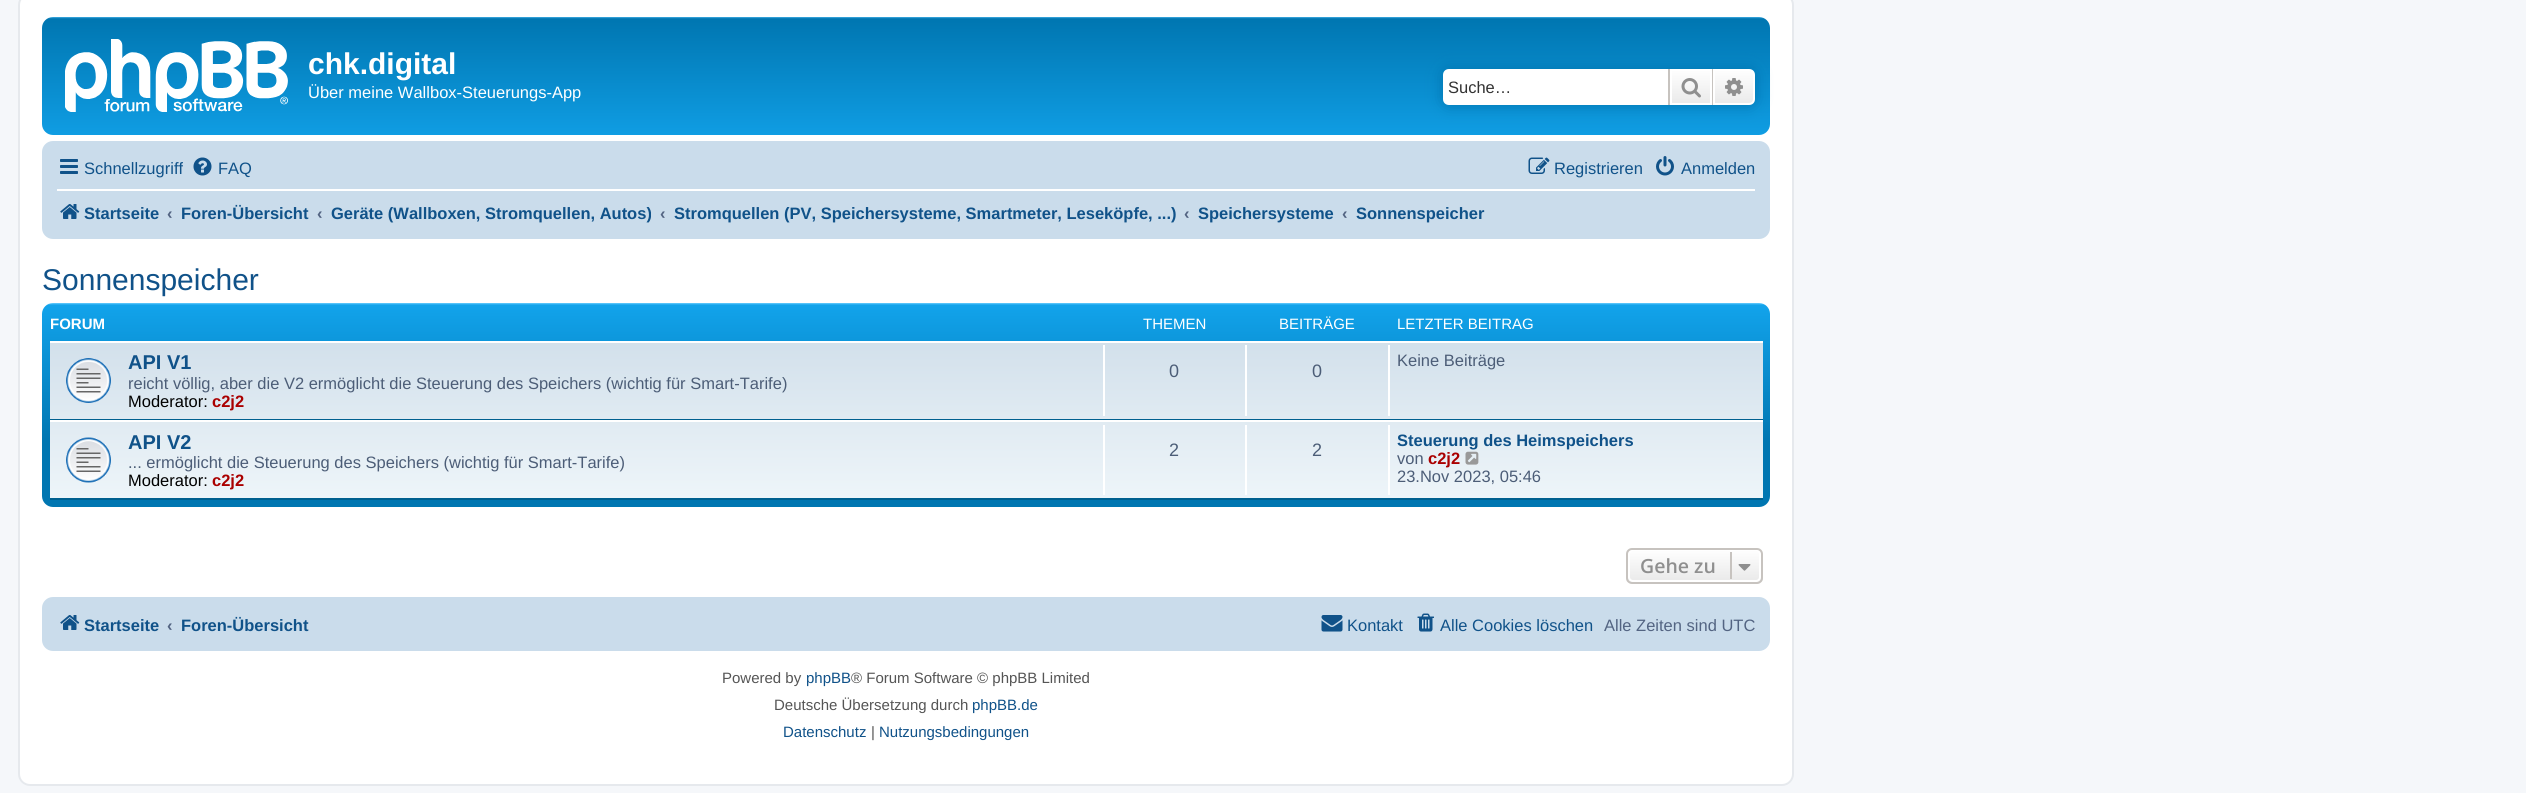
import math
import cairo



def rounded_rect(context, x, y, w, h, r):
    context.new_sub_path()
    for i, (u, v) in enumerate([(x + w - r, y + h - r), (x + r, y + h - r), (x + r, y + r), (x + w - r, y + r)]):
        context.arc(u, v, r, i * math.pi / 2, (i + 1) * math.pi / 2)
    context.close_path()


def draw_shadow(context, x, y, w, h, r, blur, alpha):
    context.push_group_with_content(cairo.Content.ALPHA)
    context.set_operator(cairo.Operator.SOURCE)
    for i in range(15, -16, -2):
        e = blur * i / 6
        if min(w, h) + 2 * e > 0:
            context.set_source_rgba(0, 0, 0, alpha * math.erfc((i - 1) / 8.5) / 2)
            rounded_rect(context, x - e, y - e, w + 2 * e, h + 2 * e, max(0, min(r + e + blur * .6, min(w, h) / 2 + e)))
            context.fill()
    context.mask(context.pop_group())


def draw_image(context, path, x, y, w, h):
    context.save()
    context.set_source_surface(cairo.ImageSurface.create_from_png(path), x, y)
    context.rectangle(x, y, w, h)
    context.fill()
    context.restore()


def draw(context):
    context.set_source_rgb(245 / 255, 247 / 255, 250 / 255)
    context.paint()
    context.set_source_rgb(1, 1, 1)
    rounded_rect(context, 19, -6, 1774, 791, 11)
    context.fill_preserve()
    context.set_source_rgb(230 / 255, 233 / 255, 237 / 255)
    context.stroke()
    gradient = cairo.LinearGradient(906, 16, 906, 154)
    gradient.add_color_stop_rgba(0, 106 / 255, 206 / 255, 1, 1)
    gradient.add_color_stop_rgba(0.02, 0, 118 / 255, 177 / 255, 1)
    gradient.add_color_stop_rgba(1, 18 / 255, 163 / 255, 235 / 255, 1)
    context.set_source(gradient)
    rounded_rect(context, 42, 17, 1728, 118, 11)
    context.fill()
    draw_image(context, "images/1.png", 65, 39, 223, 73)
    context.set_source_rgb(0, 117 / 255, 176 / 255)
    draw_shadow(context, 1443, 69, 312, 36, 6, 7.5, 1)
    context.set_source_rgb(1, 1, 1)
    context.new_path()
    context.move_to(1449, 69)
    context.line_to(1668, 69)
    context.line_to(1668, 105)
    context.line_to(1449, 105)
    context.curve_to(1445.5, 105, 1443, 102.5, 1443, 99)
    context.line_to(1443, 75)
    context.curve_to(1443, 71.5, 1445.5, 69, 1449, 69)
    context.close_path()
    context.fill()
    gradient = cairo.LinearGradient(1691, 69, 1691, 105)
    gradient.add_color_stop_rgba(0, 1, 1, 1, 1)
    gradient.add_color_stop_rgba(1, 233 / 255, 233 / 255, 233 / 255, 1)
    context.set_source(gradient)
    context.rectangle(1672, 71, 38, 32)
    context.fill()
    context.rectangle(1671, 70, 40, 34)
    context.set_source_rgb(1, 1, 1)
    context.stroke()
    context.set_source_rgb(199 / 255, 195 / 255, 191 / 255)
    context.rectangle(1712, 69, 1, 36)
    context.fill()
    context.rectangle(1668, 69, 2, 36)
    context.fill()
    draw_image(context, "images/2.png", 1681, 78, 20, 20)
    gradient = cairo.LinearGradient(1734, 69, 1734, 105)
    gradient.add_color_stop_rgba(0, 1, 1, 1, 1)
    gradient.add_color_stop_rgba(1, 233 / 255, 233 / 255, 233 / 255, 1)
    context.set_source(gradient)
    context.new_path()
    context.move_to(1714, 70)
    context.line_to(1749, 70)
    context.curve_to(1752, 70, 1754, 72, 1754, 75)
    context.line_to(1754, 99)
    context.curve_to(1754, 102, 1752, 104, 1749, 104)
    context.line_to(1714, 104)
    context.close_path()
    context.fill_preserve()
    context.set_source_rgb(1, 1, 1)
    context.stroke()
    draw_image(context, "images/3.png", 1725, 78, 18, 18)
    context.set_source_rgb(202 / 255, 220 / 255, 235 / 255)
    rounded_rect(context, 42, 141, 1728, 98, 11)
    context.fill()
    draw_image(context, "images/4.png", 60, 159, 18, 15)
    draw_image(context, "images/5.png", 193, 157, 19, 19)
    draw_image(context, "images/6.png", 1528, 157, 22, 17)
    draw_image(context, "images/7.png", 1656, 156, 18, 20)
    context.set_source_rgb(1, 1, 1)
    context.rectangle(57, 189, 1698, 2)
    context.fill()
    draw_image(context, "images/8.png", 60, 204, 20, 15)
    gradient = cairo.LinearGradient(906, 303, 906, 507)
    gradient.add_color_stop_rgba(0, 106 / 255, 206 / 255, 1, 1)
    gradient.add_color_stop_rgba(0.01, 18 / 255, 163 / 255, 235 / 255, 1)
    gradient.add_color_stop_rgba(0.68, 0, 118 / 255, 177 / 255, 1)
    gradient.add_color_stop_rgba(1, 0, 118 / 255, 177 / 255, 1)
    context.set_source(gradient)
    rounded_rect(context, 42, 303, 1728, 204, 11)
    context.fill()
    gradient = cairo.LinearGradient(906, 340, 906, 500)
    gradient.add_color_stop_rgba(0, 210 / 255, 224 / 255, 235 / 255, 1)
    gradient.add_color_stop_rgba(1, 238 / 255, 245 / 255, 249 / 255, 1)
    context.set_source(gradient)
    context.rectangle(50, 343, 1713, 155)
    context.fill()
    context.set_source_rgb(1, 1, 1)
    context.rectangle(50, 341, 1713, 2)
    context.fill()
    context.set_source_rgb(0, 96 / 255, 143 / 255)
    context.rectangle(50, 419, 1713, 1)
    context.fill()
    draw_image(context, "images/9.png", 66, 358, 45, 45)
    context.set_source_rgb(1, 1, 1)
    context.rectangle(1103, 345, 2, 71)
    context.fill()
    context.rectangle(1245, 345, 2, 71)
    context.fill()
    context.rectangle(1388, 345, 2, 71)
    context.fill()
    context.rectangle(50, 420, 1713, 2)
    context.fill()
    context.set_source_rgb(0, 96 / 255, 143 / 255)
    context.rectangle(50, 498, 1713, 2)
    context.fill()
    draw_image(context, "images/10.png", 66, 437, 45, 46)
    context.set_source_rgb(1, 1, 1)
    context.rectangle(1103, 425, 2, 70)
    context.fill()
    context.rectangle(1245, 425, 2, 70)
    context.fill()
    context.rectangle(1388, 425, 2, 70)
    context.fill()
    draw_image(context, "images/11.png", 1465, 451, 14, 14)
    context.save()
    rounded_rect(context, 1626, 548, 137, 36, 6)
    context.clip()
    gradient = cairo.LinearGradient(1694, 549, 1694, 582)
    gradient.add_color_stop_rgba(0, 1, 1, 1, 1)
    gradient.add_color_stop_rgba(1, 233 / 255, 233 / 255, 233 / 255, 1)
    context.set_source(gradient)
    context.rectangle(1626, 549, 137, 33)
    context.fill()
    context.restore()
    rounded_rect(context, 1629, 550, 131, 31, 4)
    context.stroke()
    rounded_rect(context, 1627, 549, 135, 34, 5)
    context.set_source_rgb(199 / 255, 195 / 255, 191 / 255)
    context.stroke()
    context.rectangle(1730, 552, 2, 27)
    context.fill()
    draw_image(context, "images/12.png", 1738, 564, 13, 7)
    context.set_source_rgb(202 / 255, 220 / 255, 235 / 255)
    rounded_rect(context, 42, 597, 1728, 54, 11)
    context.fill()
    draw_image(context, "images/8.png", 60, 615, 20, 15)
    draw_image(context, "images/13.png", 1321, 615, 22, 17)
    draw_image(context, "images/14.png", 1417, 613, 17, 19)
    context.select_font_face("Liberation Sans", cairo.FontSlant.NORMAL, cairo.FontWeight.BOLD)
    context.set_font_size(30)
    context.set_source_rgb(1, 1, 1)
    context.move_to(308, 74)
    context.show_text("chk.digital")
    context.select_font_face("Liberation Sans")
    context.set_font_size(16.5)
    context.move_to(308, 98)
    context.show_text("Über meine Wallbox-Steuerungs-App")
    context.set_source_rgb(51 / 255, 51 / 255, 51 / 255)
    context.move_to(1448, 93)
    context.show_text("Suche…")
    context.set_source_rgb(16 / 255, 82 / 255, 137 / 255)
    context.move_to(84, 174)
    context.show_text("Schnellzugriff")
    context.move_to(218, 174)
    context.show_text("FAQ")
    context.move_to(1554, 174)
    context.show_text("Registrieren")
    context.move_to(1681, 174)
    context.show_text("Anmelden")
    context.select_font_face("Liberation Sans", cairo.FontSlant.NORMAL, cairo.FontWeight.BOLD)
    context.move_to(84, 219)
    context.show_text("Startseite")
    context.set_source_rgb(83 / 255, 100 / 255, 130 / 255)
    context.move_to(167, 219)
    context.show_text("‹")
    context.set_source_rgb(16 / 255, 82 / 255, 137 / 255)
    context.move_to(181, 219)
    context.show_text("Foren-Übersicht")
    context.set_source_rgb(83 / 255, 100 / 255, 130 / 255)
    context.move_to(317, 219)
    context.show_text("‹")
    context.set_source_rgb(16 / 255, 82 / 255, 137 / 255)
    context.move_to(331, 219)
    context.show_text("Geräte (Wallboxen, Stromquellen, Autos)")
    context.set_source_rgb(83 / 255, 100 / 255, 130 / 255)
    context.move_to(660, 219)
    context.show_text("‹")
    context.set_source_rgb(16 / 255, 82 / 255, 137 / 255)
    context.move_to(674, 219)
    context.show_text("Stromquellen (PV, Speichersysteme, Smartmeter, Leseköpfe, ...)")
    context.set_source_rgb(83 / 255, 100 / 255, 130 / 255)
    context.move_to(1184, 219)
    context.show_text("‹")
    context.set_source_rgb(16 / 255, 82 / 255, 137 / 255)
    context.move_to(1198, 219)
    context.show_text("Speichersysteme")
    context.set_source_rgb(83 / 255, 100 / 255, 130 / 255)
    context.move_to(1342, 219)
    context.show_text("‹")
    context.set_source_rgb(16 / 255, 82 / 255, 137 / 255)
    context.move_to(1356, 219)
    context.show_text("Sonnenspeicher")
    context.select_font_face("Liberation Sans")
    context.set_font_size(30)
    context.move_to(42, 290)
    context.show_text("Sonnenspeicher")
    context.select_font_face("Liberation Sans", cairo.FontSlant.NORMAL, cairo.FontWeight.BOLD)
    context.set_font_size(15)
    context.set_source_rgb(1, 1, 1)
    context.move_to(50, 329)
    context.show_text("FORUM")
    context.select_font_face("Liberation Sans")
    context.move_to(1143, 329)
    context.show_text("THEMEN")
    context.move_to(1279, 329)
    context.show_text("BEITRÄGE")
    context.move_to(1397, 329)
    context.show_text("LETZTER BEITRAG")
    context.select_font_face("Liberation Sans", cairo.FontSlant.NORMAL, cairo.FontWeight.BOLD)
    context.set_font_size(20)
    context.set_source_rgb(16 / 255, 82 / 255, 137 / 255)
    context.move_to(128, 369)
    context.show_text("API V1")
    context.select_font_face("Liberation Sans")
    context.set_font_size(16.5)
    context.set_source_rgb(76 / 255, 93 / 255, 119 / 255)
    context.move_to(128, 389)
    context.show_text("reicht völlig, aber die V2 ermöglicht die Steuerung des Speichers (wichtig für Smart-Tarife)")
    context.set_source_rgb(0, 0, 0)
    context.move_to(128, 407)
    context.show_text("Moderator:")
    context.select_font_face("Liberation Sans", cairo.FontSlant.NORMAL, cairo.FontWeight.BOLD)
    context.set_source_rgb(170 / 255, 0, 0)
    context.move_to(212, 407)
    context.show_text("c2j2")
    context.select_font_face("Liberation Sans")
    context.set_font_size(18)
    context.set_source_rgb(76 / 255, 93 / 255, 119 / 255)
    context.move_to(1169, 377)
    context.show_text("0")
    context.move_to(1312, 377)
    context.show_text("0")
    context.set_font_size(16.5)
    context.move_to(1397, 366)
    context.show_text("Keine Beiträge")
    context.select_font_face("Liberation Sans", cairo.FontSlant.NORMAL, cairo.FontWeight.BOLD)
    context.set_font_size(20)
    context.set_source_rgb(16 / 255, 82 / 255, 137 / 255)
    context.move_to(128, 449)
    context.show_text("API V2")
    context.select_font_face("Liberation Sans")
    context.set_font_size(16.5)
    context.set_source_rgb(76 / 255, 93 / 255, 119 / 255)
    context.move_to(128, 468)
    context.show_text("... ermöglicht die Steuerung des Speichers (wichtig für Smart-Tarife)")
    context.set_source_rgb(0, 0, 0)
    context.move_to(128, 486)
    context.show_text("Moderator:")
    context.select_font_face("Liberation Sans", cairo.FontSlant.NORMAL, cairo.FontWeight.BOLD)
    context.set_source_rgb(170 / 255, 0, 0)
    context.move_to(212, 486)
    context.show_text("c2j2")
    context.select_font_face("Liberation Sans")
    context.set_font_size(18)
    context.set_source_rgb(76 / 255, 93 / 255, 119 / 255)
    context.move_to(1169, 456)
    context.show_text("2")
    context.move_to(1312, 456)
    context.show_text("2")
    context.select_font_face("Liberation Sans", cairo.FontSlant.NORMAL, cairo.FontWeight.BOLD)
    context.set_font_size(16.5)
    context.set_source_rgb(16 / 255, 82 / 255, 137 / 255)
    context.move_to(1397, 446)
    context.show_text("Steuerung des Heimspeichers")
    context.select_font_face("Liberation Sans")
    context.set_source_rgb(76 / 255, 93 / 255, 119 / 255)
    context.move_to(1397, 464)
    context.show_text("von")
    context.select_font_face("Liberation Sans", cairo.FontSlant.NORMAL, cairo.FontWeight.BOLD)
    context.set_source_rgb(170 / 255, 0, 0)
    context.move_to(1428, 464)
    context.show_text("c2j2")
    context.select_font_face("Liberation Sans")
    context.set_source_rgb(76 / 255, 93 / 255, 119 / 255)
    context.move_to(1397, 482)
    context.show_text("23.Nov 2023, 05:46")
    context.select_font_face("Open Sans SemiBold")
    context.set_font_size(19.5)
    context.set_source_rgb(143 / 255, 143 / 255, 143 / 255)
    context.move_to(1640, 573)
    context.show_text("Gehe zu")
    context.select_font_face("Liberation Sans", cairo.FontSlant.NORMAL, cairo.FontWeight.BOLD)
    context.set_font_size(16.5)
    context.set_source_rgb(16 / 255, 82 / 255, 137 / 255)
    context.move_to(84, 631)
    context.show_text("Startseite")
    context.set_source_rgb(83 / 255, 100 / 255, 130 / 255)
    context.move_to(167, 631)
    context.show_text("‹")
    context.set_source_rgb(16 / 255, 82 / 255, 137 / 255)
    context.move_to(181, 631)
    context.show_text("Foren-Übersicht")
    context.select_font_face("Liberation Sans")
    context.move_to(1347, 631)
    context.show_text("Kontakt")
    context.move_to(1440, 631)
    context.show_text("Alle Cookies löschen")
    context.set_source_rgb(83 / 255, 100 / 255, 130 / 255)
    context.move_to(1604, 631)
    context.show_text("Alle Zeiten sind UTC")
    context.set_font_size(15)
    context.set_source_rgb(85 / 255, 85 / 255, 85 / 255)
    context.move_to(722, 683)
    context.show_text("Powered by")
    context.set_source_rgb(16 / 255, 82 / 255, 137 / 255)
    context.move_to(806, 683)
    context.show_text("phpBB")
    context.set_source_rgb(85 / 255, 85 / 255, 85 / 255)
    context.move_to(851, 683)
    context.show_text("® Forum Software © phpBB Limited")
    context.move_to(774, 710)
    context.show_text("Deutsche Übersetzung durch")
    context.set_source_rgb(16 / 255, 82 / 255, 137 / 255)
    context.move_to(972, 710)
    context.show_text("phpBB.de")
    context.move_to(783, 737)
    context.show_text("Datenschutz")
    context.set_source_rgb(85 / 255, 85 / 255, 85 / 255)
    context.move_to(871, 737)
    context.show_text("|")
    context.set_source_rgb(16 / 255, 82 / 255, 137 / 255)
    context.move_to(879, 737)
    context.show_text("Nutzungsbedingungen")


surface = cairo.ImageSurface(cairo.Format.RGB24, 2526, 793)
context = cairo.Context(surface)
options = cairo.FontOptions()
options.set_hint_metrics(cairo.HintMetrics.OFF)
options.set_hint_style(cairo.HintStyle.NONE)
context.set_font_options(options)
context.set_miter_limit(4)
draw(context)
surface.write_to_png("out.png")
